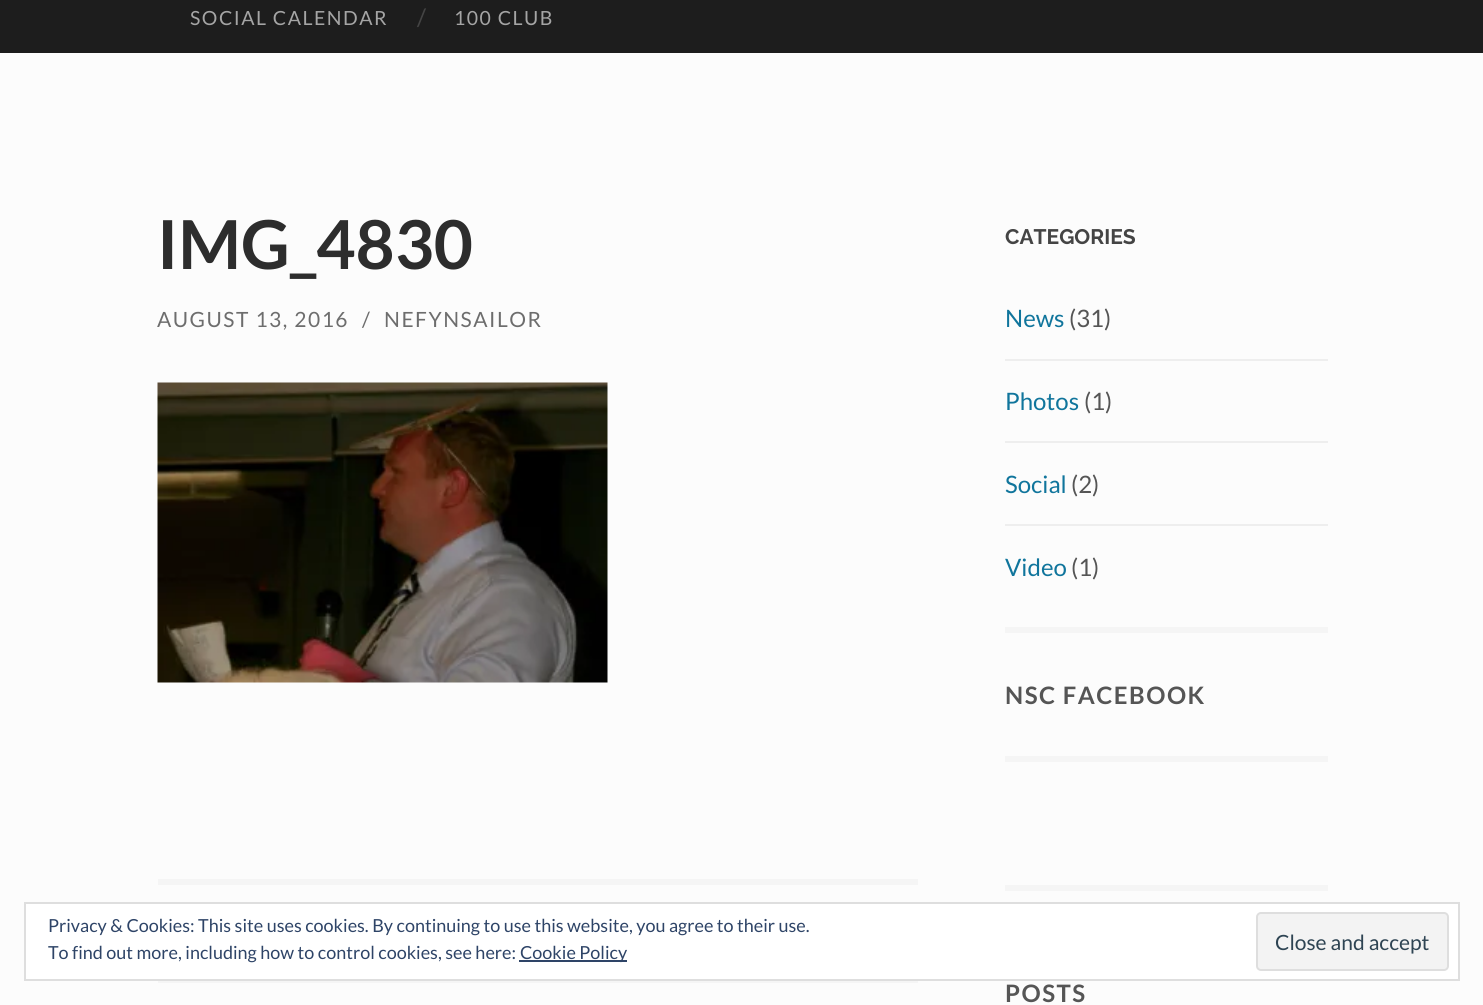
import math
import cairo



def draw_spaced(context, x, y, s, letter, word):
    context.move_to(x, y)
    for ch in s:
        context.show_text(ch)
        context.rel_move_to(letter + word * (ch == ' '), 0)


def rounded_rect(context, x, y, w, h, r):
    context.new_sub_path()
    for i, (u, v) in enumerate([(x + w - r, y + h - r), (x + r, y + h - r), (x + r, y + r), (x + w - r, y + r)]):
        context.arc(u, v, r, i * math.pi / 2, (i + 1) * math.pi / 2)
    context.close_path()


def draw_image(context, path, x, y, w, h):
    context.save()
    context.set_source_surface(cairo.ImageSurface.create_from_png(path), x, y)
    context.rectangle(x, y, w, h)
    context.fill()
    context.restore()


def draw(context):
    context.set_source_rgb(252 / 255, 252 / 255, 252 / 255)
    context.paint()
    context.set_source_rgb(29 / 255, 29 / 255, 29 / 255)
    context.rectangle(0, 0, 1483, 53)
    context.fill()
    context.set_source_rgb(245 / 255, 245 / 255, 245 / 255)
    context.rectangle(158, 879, 760, 6)
    context.fill()
    draw_image(context, "images/1.png", 157, 382, 451, 301)
    context.rectangle(158, 981, 760, 2)
    context.fill()
    context.rectangle(1005, 627, 323, 6)
    context.fill()
    context.set_source_rgb(238 / 255, 238 / 255, 238 / 255)
    context.rectangle(1005, 359, 323, 2)
    context.fill()
    context.rectangle(1005, 441, 323, 2)
    context.fill()
    context.rectangle(1005, 524, 323, 2)
    context.fill()
    context.set_source_rgb(245 / 255, 245 / 255, 245 / 255)
    context.rectangle(1005, 756, 323, 6)
    context.fill()
    context.rectangle(1005, 885, 323, 6)
    context.fill()
    context.set_source_rgb(1, 1, 1)
    context.rectangle(25, 903, 1434, 77)
    context.fill_preserve()
    context.set_source_rgb(222 / 255, 222 / 255, 222 / 255)
    context.stroke()
    context.set_source_rgb(46 / 255, 68 / 255, 103 / 255)
    context.rectangle(519, 960, 108, 2)
    context.fill()
    context.set_source_rgb(243 / 255, 243 / 255, 243 / 255)
    rounded_rect(context, 1257, 913, 191, 57, 4)
    context.fill_preserve()
    context.set_source_rgb(222 / 255, 222 / 255, 222 / 255)
    context.stroke()
    context.select_font_face("Lato")
    context.set_font_size(19.5)
    context.set_source_rgb(165 / 255, 165 / 255, 165 / 255)
    draw_spaced(context, 190, 25, "SOCIAL CALENDAR", 1.5, 0)
    context.set_font_size(24)
    context.set_source_rgb(68 / 255, 68 / 255, 68 / 255)
    context.move_to(417, 26)
    context.show_text("/")
    context.set_font_size(19.5)
    context.set_source_rgb(165 / 255, 165 / 255, 165 / 255)
    draw_spaced(context, 454, 25, "100 CLUB", 1.5, 0)
    context.select_font_face("Lato", cairo.FontSlant.NORMAL, cairo.FontWeight.BOLD)
    context.set_font_size(67.5)
    context.set_source_rgb(45 / 255, 45 / 255, 45 / 255)
    context.move_to(157, 269)
    context.show_text("IMG_4830")
    context.select_font_face("Lato")
    context.set_font_size(21)
    context.set_source_rgb(109 / 255, 109 / 255, 109 / 255)
    draw_spaced(context, 157, 327, "AUGUST 13, 2016", 1.5, 0)
    draw_spaced(context, 362, 327, "/", 1.5, 0)
    draw_spaced(context, 384, 327, "NEFYNSAILOR", 1.5, 0)
    context.select_font_face("Raleway", cairo.FontSlant.NORMAL, cairo.FontWeight.BOLD)
    context.set_source_rgb(68 / 255, 68 / 255, 68 / 255)
    context.move_to(1005, 244)
    context.show_text("CATEGORIES")
    context.select_font_face("Lato")
    context.set_font_size(24)
    context.set_source_rgb(16 / 255, 117 / 255, 156 / 255)
    context.move_to(1005, 327)
    context.show_text("News")
    context.set_source_rgb(85 / 255, 85 / 255, 85 / 255)
    context.move_to(1069, 327)
    context.show_text("(31)")
    context.set_source_rgb(16 / 255, 117 / 255, 156 / 255)
    context.move_to(1005, 410)
    context.show_text("Photos")
    context.set_source_rgb(85 / 255, 85 / 255, 85 / 255)
    context.move_to(1084, 410)
    context.show_text("(1)")
    context.set_source_rgb(16 / 255, 117 / 255, 156 / 255)
    context.move_to(1005, 493)
    context.show_text("Social")
    context.set_source_rgb(85 / 255, 85 / 255, 85 / 255)
    context.move_to(1071, 493)
    context.show_text("(2)")
    context.set_source_rgb(16 / 255, 117 / 255, 156 / 255)
    context.move_to(1005, 576)
    context.show_text("Video")
    context.set_source_rgb(85 / 255, 85 / 255, 85 / 255)
    context.move_to(1071, 576)
    context.show_text("(1)")
    context.select_font_face("Lato", cairo.FontSlant.NORMAL, cairo.FontWeight.BOLD)
    draw_spaced(context, 1005, 704, "NSC FACEBOOK", 1.5, 0)
    draw_spaced(context, 1005, 1002, "POSTS", 1.5, 0)
    context.select_font_face("Lato")
    context.set_font_size(18)
    context.set_source_rgb(46 / 255, 68 / 255, 103 / 255)
    context.move_to(48, 932)
    context.show_text("Privacy & Cookies: This site uses cookies. By continuing to use this website, you agree to their use.")
    context.move_to(48, 959)
    context.show_text("To find out more, including how to control cookies, see here:")
    context.move_to(520, 959)
    context.show_text("Cookie Policy")
    context.set_font_size(21)
    context.set_source_rgb(46 / 255, 68 / 255, 83 / 255)
    context.move_to(1275, 950)
    context.show_text("Close and accept")


surface = cairo.ImageSurface(cairo.Format.RGB24, 1483, 1005)
context = cairo.Context(surface)
options = cairo.FontOptions()
options.set_hint_metrics(cairo.HintMetrics.OFF)
options.set_hint_style(cairo.HintStyle.NONE)
context.set_font_options(options)
context.set_miter_limit(4)
draw(context)
surface.write_to_png("out.png")
